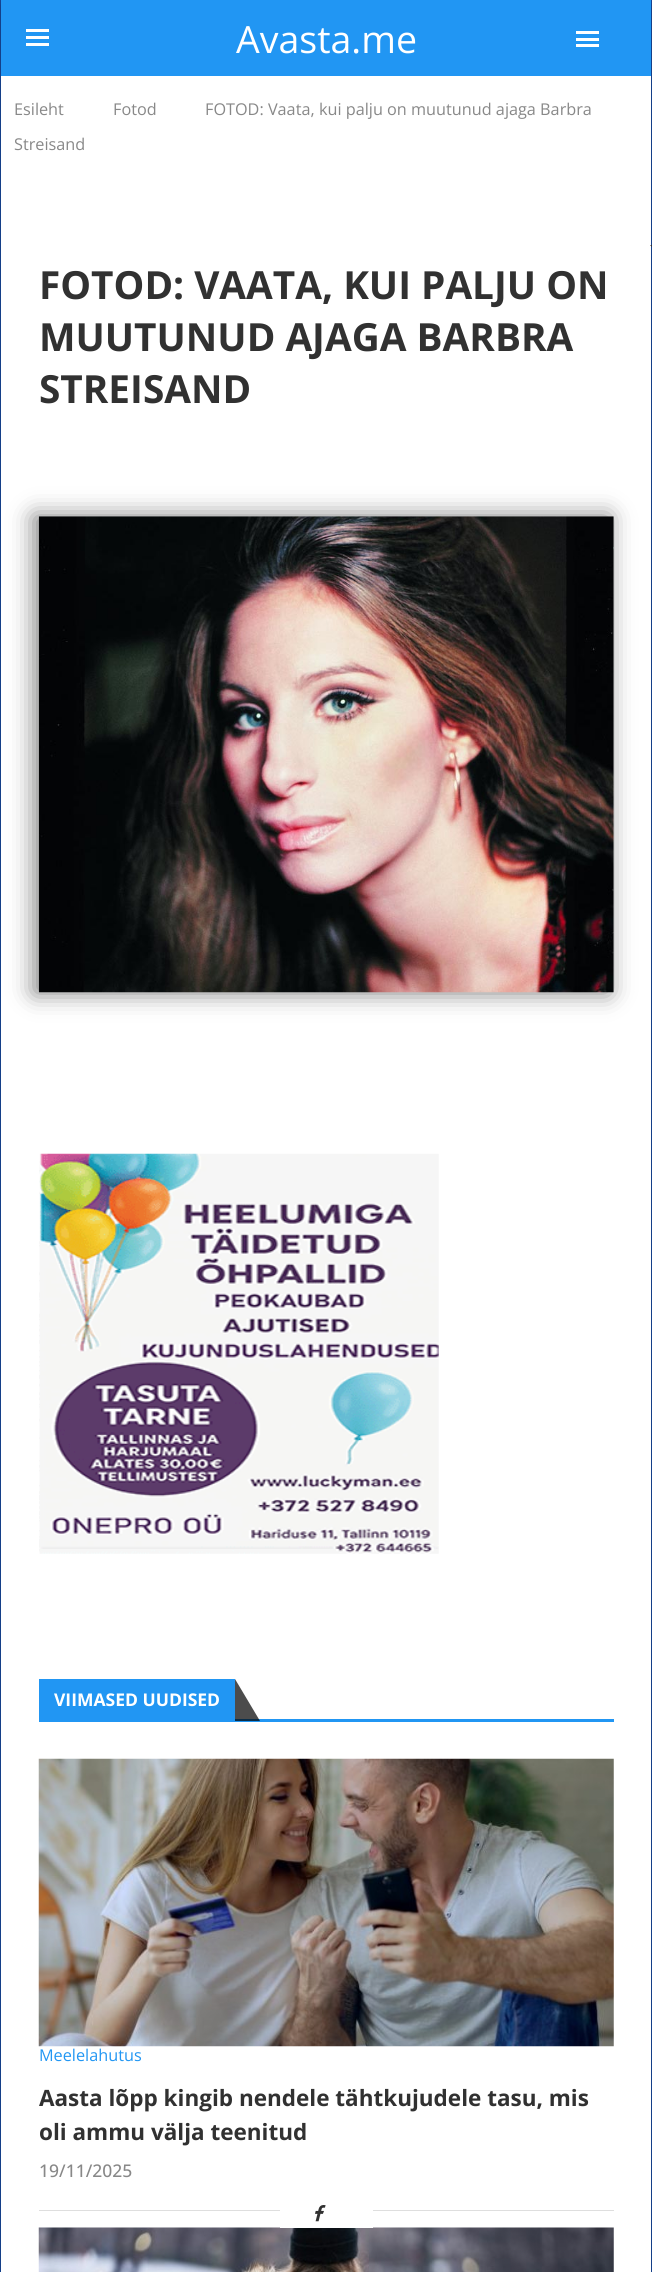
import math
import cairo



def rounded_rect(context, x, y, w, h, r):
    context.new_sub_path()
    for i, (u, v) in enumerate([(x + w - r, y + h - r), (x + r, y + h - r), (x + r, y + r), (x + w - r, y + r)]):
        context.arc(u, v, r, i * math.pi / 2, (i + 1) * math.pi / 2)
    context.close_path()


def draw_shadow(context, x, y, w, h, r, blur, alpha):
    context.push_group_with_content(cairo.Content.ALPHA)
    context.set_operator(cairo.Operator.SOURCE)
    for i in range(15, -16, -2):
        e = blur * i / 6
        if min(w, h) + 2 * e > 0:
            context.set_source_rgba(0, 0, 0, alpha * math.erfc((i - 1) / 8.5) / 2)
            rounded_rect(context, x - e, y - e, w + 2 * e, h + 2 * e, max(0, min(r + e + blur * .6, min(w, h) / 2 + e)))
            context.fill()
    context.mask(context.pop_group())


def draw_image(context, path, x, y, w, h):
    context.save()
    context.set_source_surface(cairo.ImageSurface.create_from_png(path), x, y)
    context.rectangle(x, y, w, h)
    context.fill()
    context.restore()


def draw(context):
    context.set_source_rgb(22 / 255, 69 / 255, 150 / 255)
    context.paint()
    context.set_source_rgb(0, 0, 0)
    draw_shadow(context, 1, 6, 650, 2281, 0, 5, 0.2)
    context.set_source_rgb(1, 1, 1)
    context.rectangle(1, 76, 650, 2196)
    context.fill()
    context.set_source_rgb(33 / 255, 150 / 255, 243 / 255)
    context.rectangle(1, 0, 650, 76)
    context.fill()
    context.set_source_rgb(1, 1, 1)
    context.rectangle(26, 29, 23, 3)
    context.fill()
    context.rectangle(26, 36, 23, 3)
    context.fill()
    context.rectangle(26, 43, 23, 3)
    context.fill()
    context.rectangle(576, 31, 23, 3)
    context.fill()
    context.rectangle(576, 44, 23, 3)
    context.fill()
    context.rectangle(576, 38, 23, 3)
    context.fill()
    context.set_source_rgb(49 / 255, 49 / 255, 49 / 255)
    context.new_path()
    context.move_to(650, 245)
    context.line_to(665, 245)
    context.line_to(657.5, 252.5)
    context.close_path()
    context.fill()
    context.set_source_rgb(0, 0, 0)
    draw_shadow(context, 34, 516, 575, 477, 0, 12, 0.5)
    draw_image(context, "images/1.png", 38, 516, 576, 477)
    draw_image(context, "images/2.png", 39, 1153, 400, 401)
    context.set_source_rgb(33 / 255, 150 / 255, 243 / 255)
    context.rectangle(39, 1719, 575, 3)
    context.fill()
    context.rectangle(39, 1679, 196, 40)
    context.fill()
    context.set_source_rgba(0, 0, 0, 0.7)
    context.new_path()
    context.move_to(260, 1721)
    context.line_to(235, 1721)
    context.line_to(235, 1679)
    context.close_path()
    context.fill()
    draw_image(context, "images/3.png", 38, 1758, 576, 289)
    context.set_source_rgb(222 / 255, 222 / 255, 222 / 255)
    context.rectangle(39, 2210, 575, 1)
    context.fill()
    draw_image(context, "images/5.png", 38, 2227, 576, 45)
    context.set_source_rgb(1, 1, 1)
    context.rectangle(280, 2210, 93, 18)
    context.fill()
    draw_image(context, "images/4.png", 315, 2205, 11, 17)
    context.select_font_face("Open Sans")
    context.set_font_size(37.5)
    context.move_to(236, 53)
    context.show_text("Avasta.me")
    context.set_font_size(16.25)
    context.set_source_rgb(136 / 255, 136 / 255, 136 / 255)
    context.move_to(14, 115)
    context.show_text("Esileht")
    context.move_to(113, 115)
    context.show_text("Fotod")
    context.move_to(205, 115)
    context.show_text("FOTOD: Vaata, kui palju on muutunud ajaga Barbra")
    context.move_to(14, 150)
    context.show_text("Streisand")
    context.select_font_face("Open Sans", cairo.FontSlant.NORMAL, cairo.FontWeight.BOLD)
    context.set_font_size(38.75)
    context.set_source_rgb(49 / 255, 49 / 255, 49 / 255)
    context.move_to(39, 299)
    context.show_text("FOTOD: VAATA, KUI PALJU ON")
    context.move_to(39, 351)
    context.show_text("MUUTUNUD AJAGA BARBRA")
    context.move_to(39, 403)
    context.show_text("STREISAND")
    context.set_font_size(17.5)
    context.set_source_rgb(1, 1, 1)
    context.move_to(54, 1706)
    context.show_text("VIIMASED UUDISED")
    context.select_font_face("Open Sans")
    context.set_font_size(16.25)
    context.set_source_rgb(33 / 255, 150 / 255, 243 / 255)
    context.move_to(39, 2061)
    context.show_text("Meelelahutus")
    context.select_font_face("Open Sans", cairo.FontSlant.NORMAL, cairo.FontWeight.BOLD)
    context.set_font_size(22.5)
    context.set_source_rgb(49 / 255, 49 / 255, 49 / 255)
    context.move_to(39, 2106)
    context.show_text("Aasta lõpp kingib nendele tähtkujudele tasu, mis")
    context.move_to(39, 2140)
    context.show_text("oli ammu välja teenitud")
    context.select_font_face("Open Sans Medium")
    context.set_font_size(17.5)
    context.set_source_rgb(136 / 255, 136 / 255, 136 / 255)
    context.move_to(39, 2177)
    context.show_text("19/11/2025")


surface = cairo.ImageSurface(cairo.Format.RGB24, 652, 2272)
context = cairo.Context(surface)
options = cairo.FontOptions()
options.set_hint_metrics(cairo.HintMetrics.OFF)
options.set_hint_style(cairo.HintStyle.NONE)
context.set_font_options(options)
context.set_miter_limit(4)
draw(context)
surface.write_to_png("out.png")
